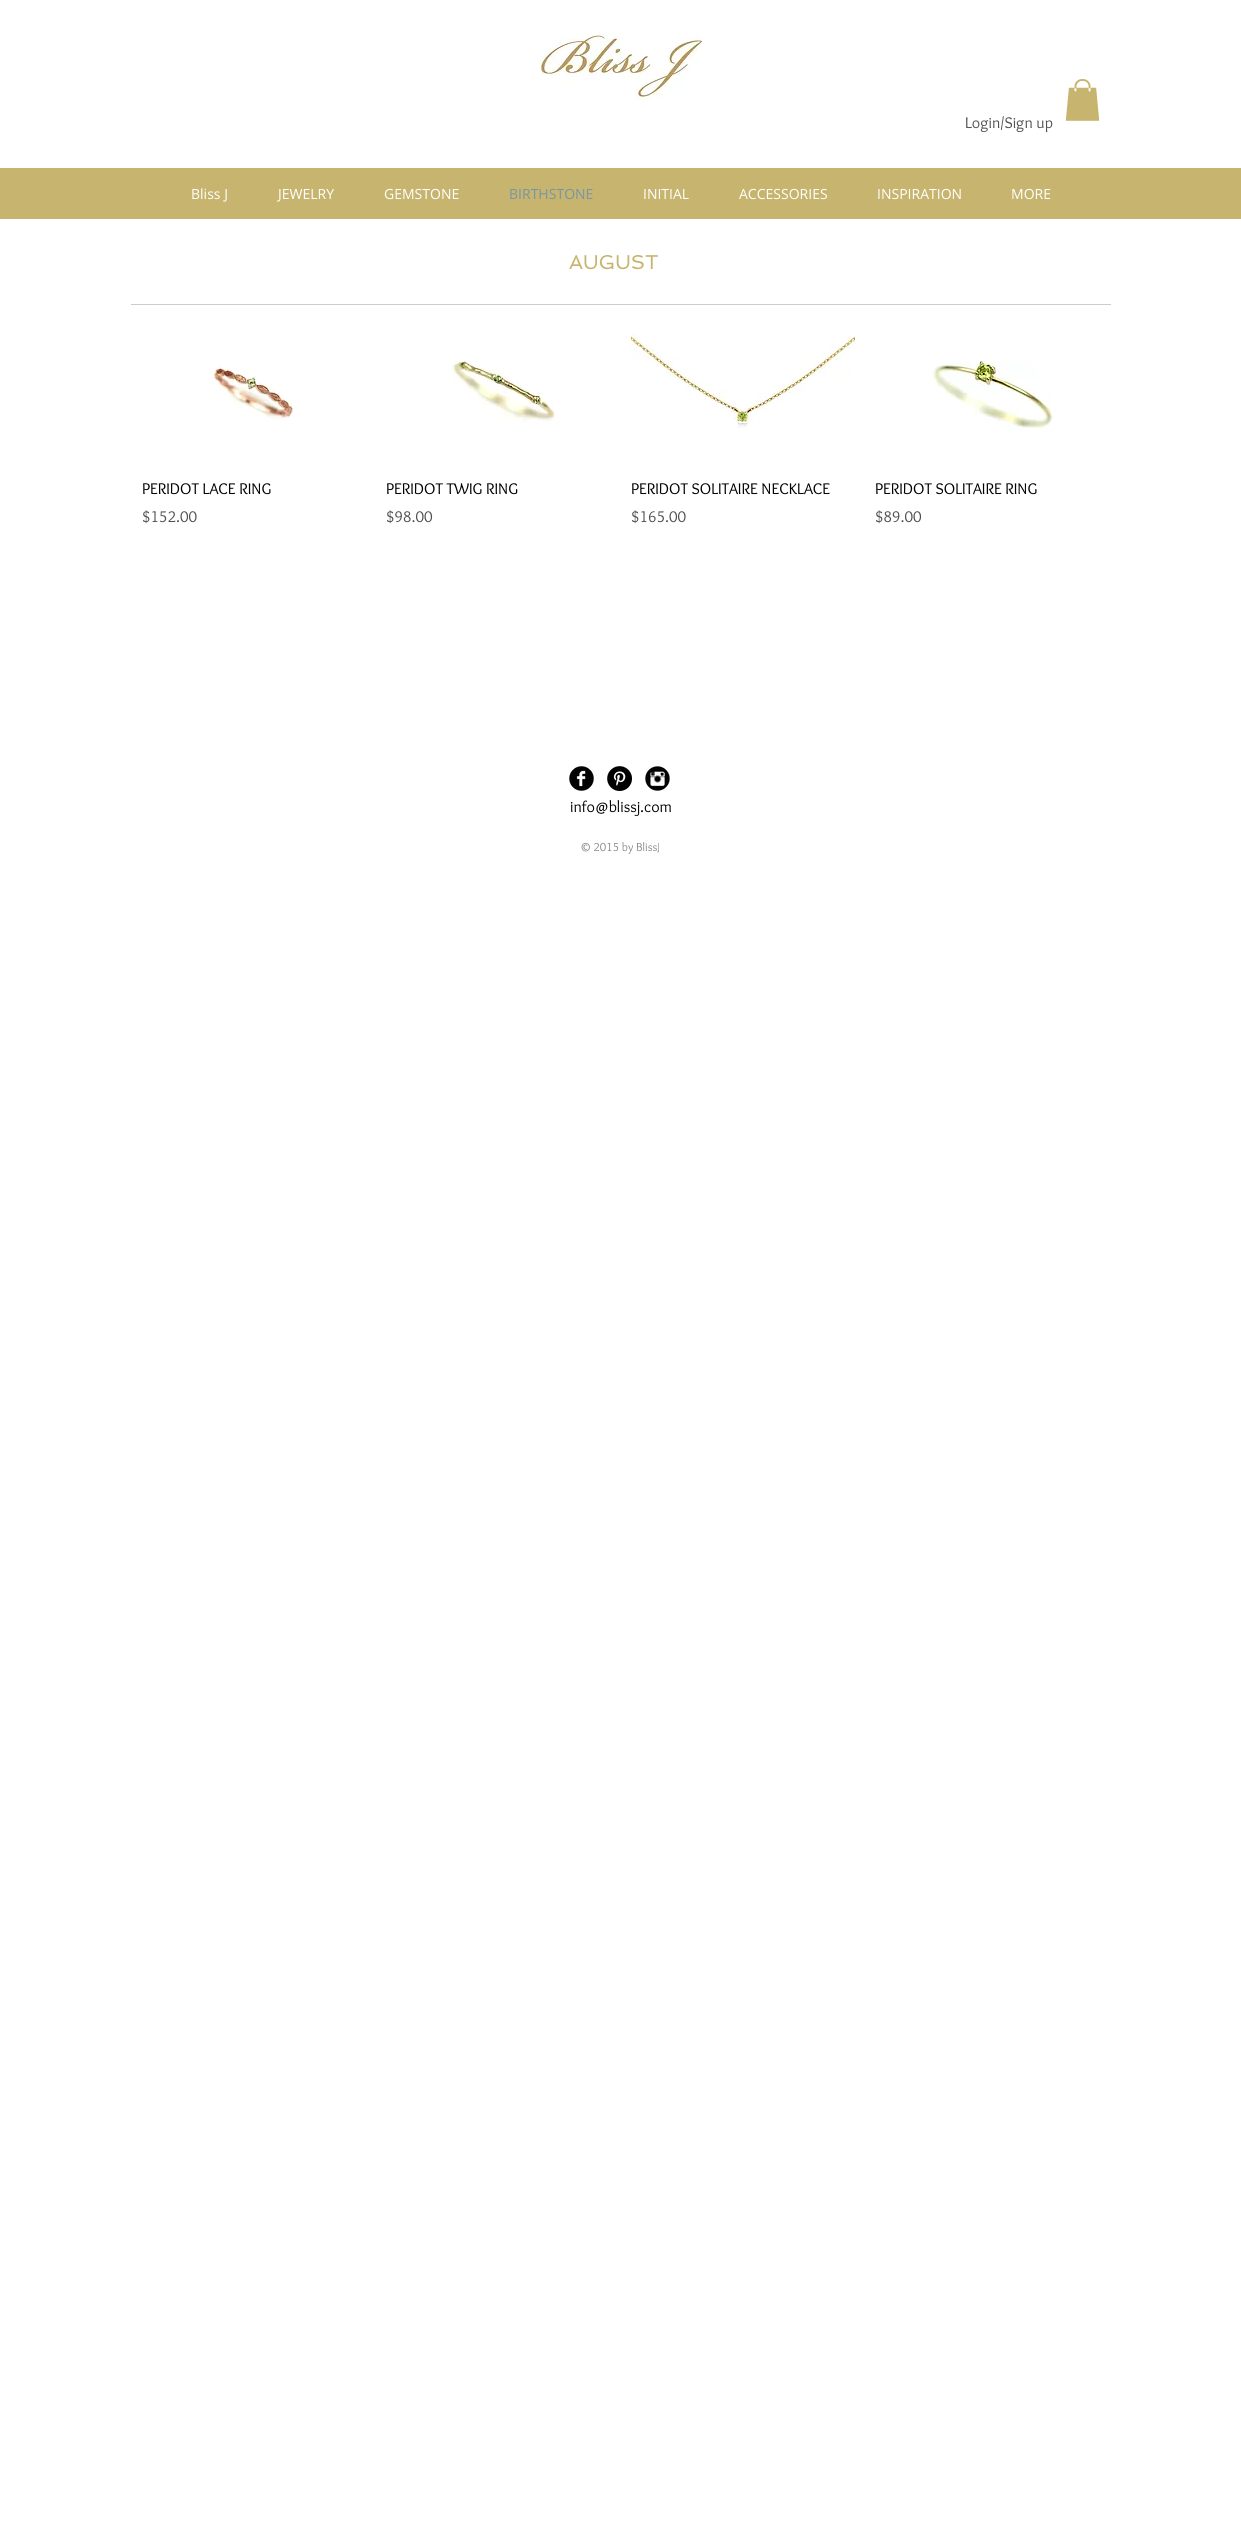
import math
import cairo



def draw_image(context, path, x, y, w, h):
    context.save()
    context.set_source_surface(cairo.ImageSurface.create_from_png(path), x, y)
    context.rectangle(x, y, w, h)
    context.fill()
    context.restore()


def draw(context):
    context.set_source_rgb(1, 1, 1)
    context.paint()
    draw_image(context, "images/1.png", 541, 31, 161, 70)
    draw_image(context, "images/2.png", 1065, 79, 35, 42)
    context.set_source_rgb(199 / 255, 181 / 255, 111 / 255)
    context.rectangle(0, 168, 1241, 51)
    context.fill()
    context.set_source_rgb(204 / 255, 204 / 255, 204 / 255)
    context.rectangle(131, 304, 980, 1)
    context.fill()
    draw_image(context, "images/3.png", 212, 365, 82, 55)
    draw_image(context, "images/4.png", 451, 360, 104, 63)
    draw_image(context, "images/5.png", 631, 334, 224, 94)
    draw_image(context, "images/6.png", 931, 361, 122, 72)
    draw_image(context, "images/7.png", 569, 766, 25, 25)
    draw_image(context, "images/8.png", 607, 766, 25, 25)
    draw_image(context, "images/9.png", 645, 766, 25, 25)
    context.select_font_face("Overlock")
    context.set_font_size(16)
    context.set_source_rgb(80 / 255, 79 / 255, 79 / 255)
    context.move_to(965, 128)
    context.show_text("Login/Sign up")
    context.select_font_face("Open Sans")
    context.set_font_size(14)
    context.set_source_rgb(1, 1, 1)
    context.move_to(191, 199)
    context.show_text("Bliss J")
    context.move_to(278, 199)
    context.show_text("JEWELRY")
    context.move_to(384, 199)
    context.show_text("GEMSTONE")
    context.set_source_rgb(119 / 255, 149 / 255, 163 / 255)
    context.move_to(509, 199)
    context.show_text("BIRTHSTONE")
    context.set_source_rgb(1, 1, 1)
    context.move_to(643, 199)
    context.show_text("INITIAL")
    context.move_to(739, 199)
    context.show_text("ACCESSORIES")
    context.move_to(877, 199)
    context.show_text("INSPIRATION")
    context.move_to(1011, 199)
    context.show_text("MORE")
    context.select_font_face("Spinnaker")
    context.set_font_size(20)
    context.set_source_rgb(199 / 255, 181 / 255, 111 / 255)
    context.move_to(569, 269)
    context.show_text("AUGUST")
    context.select_font_face("Overlock")
    context.set_font_size(16)
    context.set_source_rgb(0, 0, 0)
    context.move_to(142, 494)
    context.show_text("PERIDOT LACE RING")
    context.set_source_rgb(80 / 255, 79 / 255, 79 / 255)
    context.move_to(142, 522)
    context.show_text("$152.00")
    context.set_source_rgb(0, 0, 0)
    context.move_to(386, 494)
    context.show_text("PERIDOT TWIG RING")
    context.set_source_rgb(80 / 255, 79 / 255, 79 / 255)
    context.move_to(386, 522)
    context.show_text("$98.00")
    context.set_source_rgb(0, 0, 0)
    context.move_to(631, 494)
    context.show_text("PERIDOT SOLITAIRE NECKLACE")
    context.set_source_rgb(80 / 255, 79 / 255, 79 / 255)
    context.move_to(631, 522)
    context.show_text("$165.00")
    context.set_source_rgb(0, 0, 0)
    context.move_to(875, 494)
    context.show_text("PERIDOT SOLITAIRE RING")
    context.set_source_rgb(80 / 255, 79 / 255, 79 / 255)
    context.move_to(875, 522)
    context.show_text("$89.00")
    context.set_source_rgb(0, 0, 0)
    context.move_to(570, 812)
    context.show_text("info@blissj.com")
    context.set_font_size(12)
    context.set_source_rgb(139 / 255, 138 / 255, 138 / 255)
    context.move_to(580, 851)
    context.show_text("© 2015 by BlissJ")


surface = cairo.ImageSurface(cairo.Format.RGB24, 1241, 2545)
context = cairo.Context(surface)
options = cairo.FontOptions()
options.set_hint_metrics(cairo.HintMetrics.OFF)
options.set_hint_style(cairo.HintStyle.NONE)
context.set_font_options(options)
context.set_miter_limit(4)
draw(context)
surface.write_to_png("out.png")
